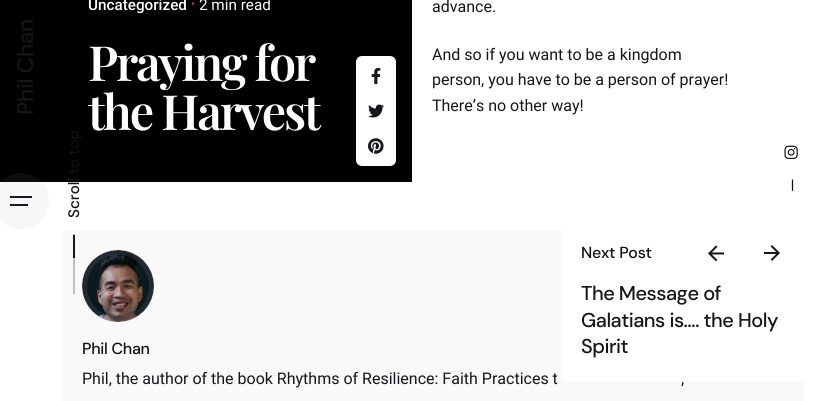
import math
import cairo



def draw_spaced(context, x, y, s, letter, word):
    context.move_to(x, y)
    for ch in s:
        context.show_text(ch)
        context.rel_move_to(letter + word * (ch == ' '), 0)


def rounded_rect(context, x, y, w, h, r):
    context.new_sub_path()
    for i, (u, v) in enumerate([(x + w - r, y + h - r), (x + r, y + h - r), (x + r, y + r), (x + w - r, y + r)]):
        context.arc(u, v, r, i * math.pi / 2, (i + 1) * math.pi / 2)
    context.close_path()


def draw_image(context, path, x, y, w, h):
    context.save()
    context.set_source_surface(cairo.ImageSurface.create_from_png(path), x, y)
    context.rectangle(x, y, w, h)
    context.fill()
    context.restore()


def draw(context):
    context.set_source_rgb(1, 1, 1)
    context.paint()
    context.set_source_rgb(0, 0, 0)
    context.rectangle(0, 0, 412, 182)
    context.fill()
    context.set_source_rgba(150 / 255, 144 / 255, 162 / 255, 0.08)
    context.arc(21, 201, 28, 0, 2 * math.pi)
    context.fill()
    context.set_source_rgb(22 / 255, 21 / 255, 25 / 255)
    context.rectangle(10, 196, 22, 2)
    context.fill()
    context.rectangle(10, 204, 18, 2)
    context.fill()
    context.set_source_rgb(1, 1, 1)
    rounded_rect(context, 356, 56, 40, 110, 6)
    context.fill()
    draw_image(context, "images/1.png", 371, 68, 10, 16)
    draw_image(context, "images/2.png", 368, 104, 16, 14)
    draw_image(context, "images/3.png", 368, 138, 16, 16)
    context.set_source_rgb(249 / 255, 249 / 255, 250 / 255)
    rounded_rect(context, 62, 230, 742, 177, 6)
    context.fill()
    context.set_source_rgb(1, 1, 1)
    rounded_rect(context, 561, 209, 243, 172, 6)
    context.fill()
    draw_image(context, "images/4.png", 708, 245, 16, 16)
    draw_image(context, "images/5.png", 764, 245, 16, 16)
    context.set_source_rgb(214 / 255, 212 / 255, 219 / 255)
    context.arc(118, 286, 36, 0, 2 * math.pi)
    context.fill()
    context.set_source_rgba(150 / 255, 144 / 255, 162 / 255, 0.35)
    context.arc(118, 286, 36, 0, 2 * math.pi)
    context.fill()
    draw_image(context, "images/6.png", 82, 250, 72, 72)
    context.arc(118, 286, 33.5, 0, 2 * math.pi)
    context.set_source_rgba(150 / 255, 144 / 255, 162 / 255, 0.15)
    context.set_line_width(5)
    context.stroke()
    context.set_source_rgb(192 / 255, 192 / 255, 194 / 255)
    context.rectangle(73, 234, 2, 60)
    context.fill()
    context.set_source_rgb(22 / 255, 21 / 255, 25 / 255)
    context.rectangle(73, 235, 2, 23)
    context.fill()
    draw_image(context, "images/7.png", 784, 145, 14, 14)
    context.select_font_face("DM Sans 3 Medium")
    context.set_font_size(22.5)
    context.save()
    context.translate(33, 115)
    context.rotate(-90 * math.pi / 180)
    draw_spaced(context, 0, 0, "Phil Chan", -0.25, 0)
    context.restore()
    context.select_font_face("Roboto Medium")
    context.set_font_size(15.25)
    context.set_source_rgb(1, 1, 1)
    context.move_to(88, 10)
    context.show_text("Uncategorized")
    context.select_font_face("Roboto")
    context.set_font_size(12)
    context.set_source_rgb(220 / 255, 40 / 255, 40 / 255)
    context.move_to(191, 8)
    context.show_text("•")
    context.set_font_size(15.25)
    context.set_source_rgb(1, 1, 1)
    context.move_to(199, 10)
    context.show_text("2 min read")
    context.select_font_face("Playfair Display SemiBold")
    context.set_font_size(48.5)
    draw_spaced(context, 88, 81, "Praying for", -2.25, 0)
    draw_spaced(context, 88, 130, "the Harvest", -2.25, 0)
    context.select_font_face("Roboto")
    context.set_font_size(16)
    context.set_source_rgb(22 / 255, 21 / 255, 25 / 255)
    context.move_to(432, 12)
    context.show_text("advance.")
    context.move_to(432, 60)
    context.show_text("And so if you want to be a kingdom")
    context.move_to(432, 85)
    context.show_text("person, you have to be a person of prayer!")
    context.move_to(432, 111)
    context.show_text("There’s no other way!")
    context.select_font_face("DM Sans Medium")
    context.set_source_rgb(17 / 255, 16 / 255, 19 / 255)
    draw_spaced(context, 581, 258, "Next Post", -0.25, 0)
    context.select_font_face("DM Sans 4 Medium")
    context.set_font_size(20)
    context.set_source_rgb(22 / 255, 21 / 255, 25 / 255)
    draw_spaced(context, 581, 300, "The Message of", -0.5, 0)
    draw_spaced(context, 581, 327, "Galatians is…. the Holy", -0.5, 0)
    draw_spaced(context, 581, 353, "Spirit", -0.5, 0)
    context.select_font_face("DM Sans Medium")
    context.set_font_size(16)
    context.set_source_rgb(17 / 255, 16 / 255, 19 / 255)
    draw_spaced(context, 82, 354, "Phil Chan", -0.25, 0)
    context.select_font_face("Roboto")
    context.set_source_rgb(22 / 255, 21 / 255, 25 / 255)
    context.move_to(82, 384)
    context.show_text("Phil, the author of the book Rhythms of Resilience: Faith Practices t")
    context.move_to(681, 384)
    context.show_text(",")
    context.select_font_face("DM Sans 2 Medium")
    context.set_font_size(15.25)
    context.set_source_rgb(17 / 255, 16 / 255, 19 / 255)
    context.save()
    context.translate(79, 218)
    context.rotate(-90 * math.pi / 180)
    context.move_to(0, 0)
    context.show_text("Scroll to top")
    context.restore()
    context.save()
    context.translate(797, 192)
    context.rotate(-90 * math.pi / 180)
    context.move_to(0, 0)
    context.show_text("—")
    context.restore()


surface = cairo.ImageSurface(cairo.Format.RGB24, 824, 401)
context = cairo.Context(surface)
options = cairo.FontOptions()
options.set_hint_metrics(cairo.HintMetrics.OFF)
options.set_hint_style(cairo.HintStyle.NONE)
context.set_font_options(options)
context.set_miter_limit(4)
draw(context)
surface.write_to_png("out.png")
